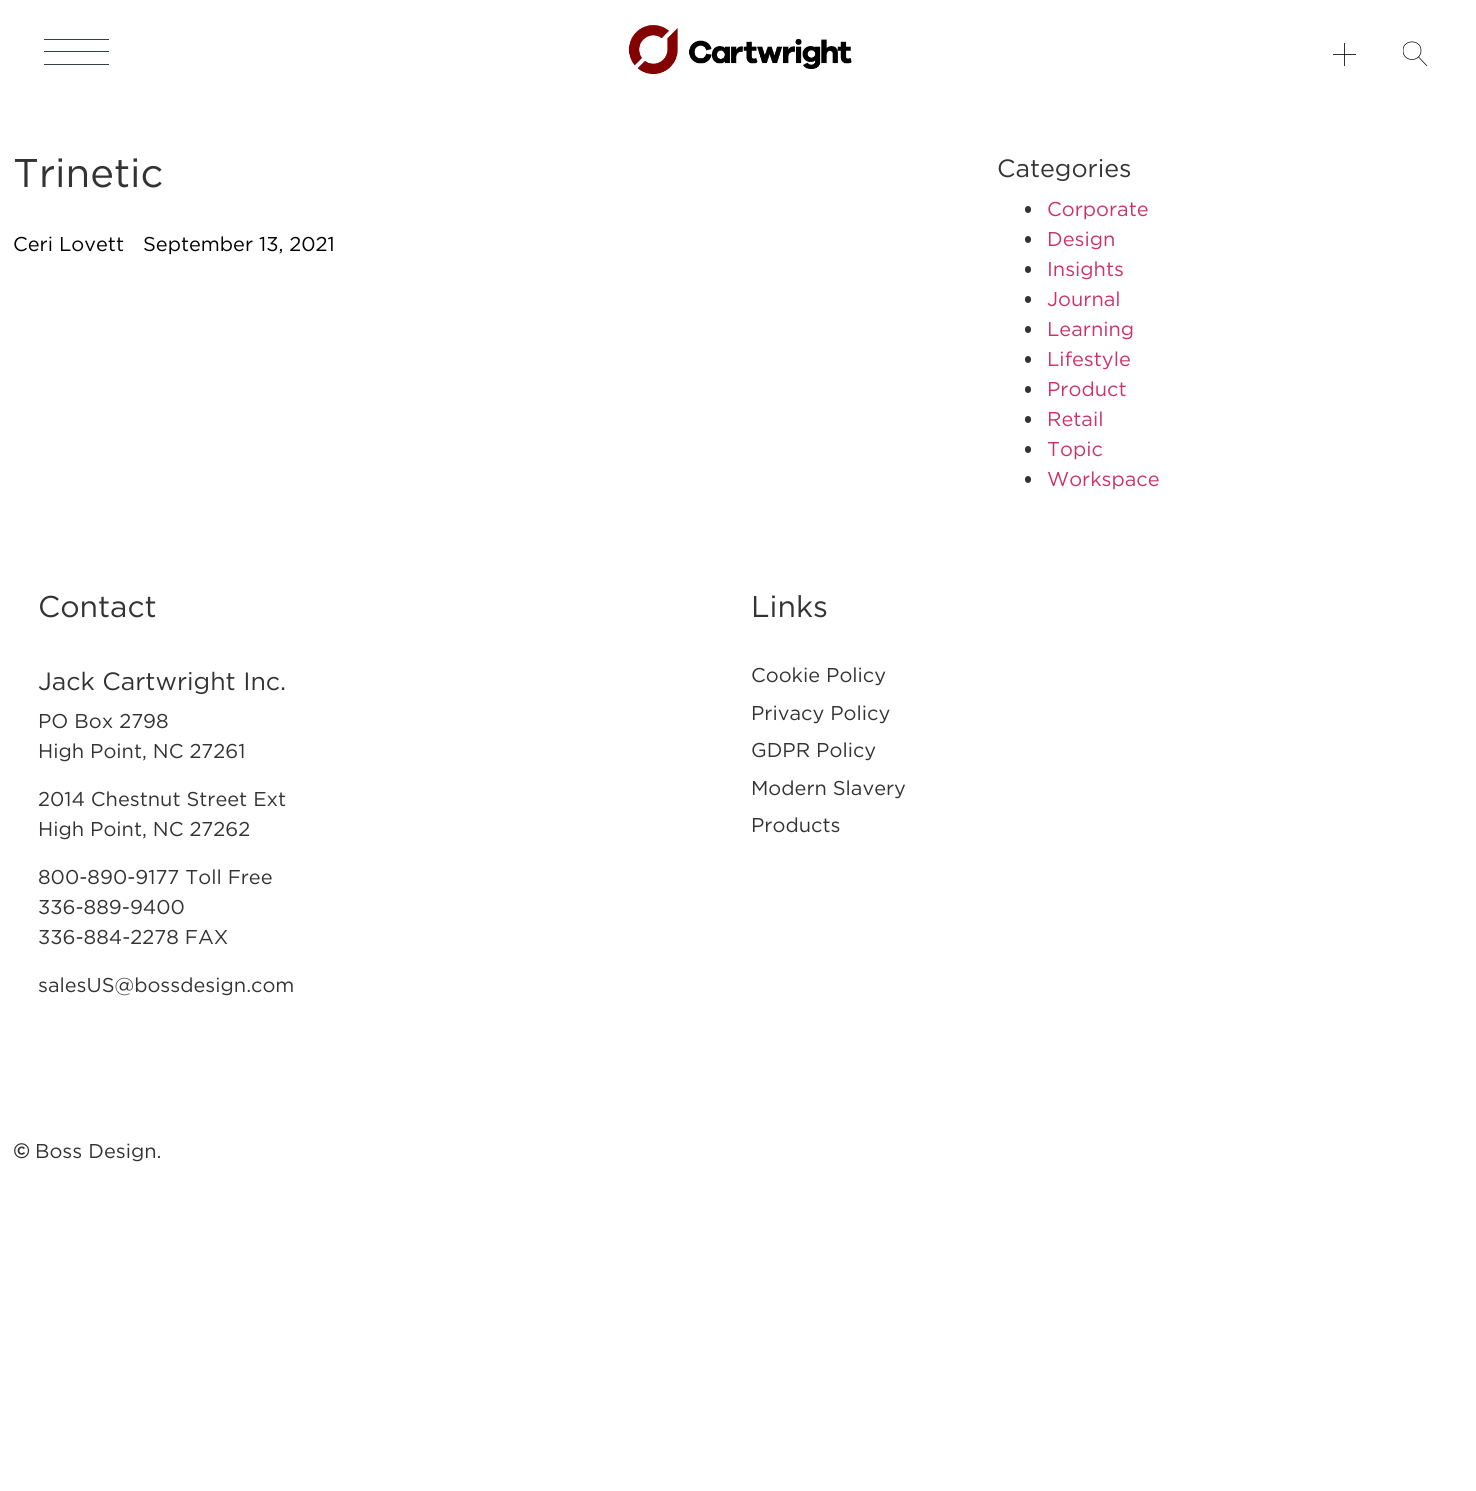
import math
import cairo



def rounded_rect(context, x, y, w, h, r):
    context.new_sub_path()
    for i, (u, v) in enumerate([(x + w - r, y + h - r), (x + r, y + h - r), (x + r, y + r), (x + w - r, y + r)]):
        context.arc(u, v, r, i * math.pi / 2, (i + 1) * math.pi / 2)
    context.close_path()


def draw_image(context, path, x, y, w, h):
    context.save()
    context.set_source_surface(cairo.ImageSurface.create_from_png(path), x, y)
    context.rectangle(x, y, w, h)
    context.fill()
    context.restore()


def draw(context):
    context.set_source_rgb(1, 1, 1)
    context.paint()
    context.set_source_rgb(51 / 255, 51 / 255, 51 / 255)
    context.rectangle(1333, 54, 23, 1)
    context.fill()
    context.set_source_rgb(51 / 255, 63 / 255, 72 / 255)
    context.rectangle(44, 39, 65, 1)
    context.fill()
    context.rectangle(44, 51, 65, 1)
    context.fill()
    context.rectangle(44, 64, 65, 1)
    context.fill()
    draw_image(context, "images/1.png", 628, 25, 224, 49)
    context.set_source_rgb(51 / 255, 51 / 255, 51 / 255)
    context.rectangle(1344, 43, 1, 23)
    context.fill()
    context.set_source_rgb(10 / 255, 10 / 255, 10 / 255)
    context.rectangle(1344, 54, 1, 1)
    context.fill()
    context.save()
    context.rectangle(1403, 41, 25, 25)
    context.clip()
    context.new_path()
    context.move_to(1421, 50.5)
    context.curve_to(1421, 39, 1403, 39, 1403, 50.5)
    context.curve_to(1403, 62.5, 1421, 62.5, 1421, 50.5)
    context.close_path()
    context.set_source_rgb(0, 0, 0)
    context.set_line_width(0.7)
    context.set_line_join(cairo.LineJoin.ROUND)
    context.stroke()
    context.restore()
    context.new_path()
    context.move_to(1418.5, 57)
    context.line_to(1427, 66)
    context.set_source_rgb(0, 0, 0)
    context.set_line_width(0.7)
    context.set_line_join(cairo.LineJoin.ROUND)
    context.stroke()
    context.set_source_rgb(51 / 255, 51 / 255, 51 / 255)
    rounded_rect(context, 1025, 206, 6, 7, 3)
    context.fill()
    rounded_rect(context, 1025, 236, 6, 7, 3)
    context.fill()
    rounded_rect(context, 1025, 266, 6, 7, 3)
    context.fill()
    rounded_rect(context, 1025, 296, 6, 7, 3)
    context.fill()
    rounded_rect(context, 1025, 326, 6, 7, 3)
    context.fill()
    rounded_rect(context, 1025, 356, 6, 7, 3)
    context.fill()
    rounded_rect(context, 1025, 386, 6, 7, 3)
    context.fill()
    rounded_rect(context, 1025, 416, 6, 7, 3)
    context.fill()
    rounded_rect(context, 1025, 446, 6, 7, 3)
    context.fill()
    rounded_rect(context, 1025, 476, 6, 7, 3)
    context.fill()
    context.select_font_face("Gotham")
    context.set_font_size(40)
    context.move_to(13, 187)
    context.show_text("Trinetic")
    context.set_font_size(20)
    context.set_source_rgb(0, 0, 0)
    context.move_to(13, 251)
    context.show_text("Ceri Lovett")
    context.move_to(143, 251)
    context.show_text("September 13, 2021")
    context.set_font_size(25)
    context.set_source_rgb(51 / 255, 51 / 255, 51 / 255)
    context.move_to(997, 177)
    context.show_text("Categories")
    context.set_font_size(20)
    context.set_source_rgb(204 / 255, 51 / 255, 102 / 255)
    context.move_to(1047, 216)
    context.show_text("Corporate")
    context.move_to(1047, 246)
    context.show_text("Design")
    context.move_to(1047, 276)
    context.show_text("Insights")
    context.move_to(1047, 306)
    context.show_text("Journal")
    context.move_to(1047, 336)
    context.show_text("Learning")
    context.move_to(1047, 366)
    context.show_text("Lifestyle")
    context.move_to(1047, 396)
    context.show_text("Product")
    context.move_to(1047, 426)
    context.show_text("Retail")
    context.move_to(1047, 456)
    context.show_text("Topic")
    context.move_to(1047, 486)
    context.show_text("Workspace")
    context.set_font_size(30)
    context.set_source_rgb(51 / 255, 51 / 255, 51 / 255)
    context.move_to(38, 617)
    context.show_text("Contact")
    context.set_font_size(25)
    context.move_to(38, 690)
    context.show_text("Jack Cartwright Inc.")
    context.set_font_size(20)
    context.move_to(38, 728)
    context.show_text("PO Box 2798")
    context.move_to(38, 758)
    context.show_text("High Point, NC 27261")
    context.move_to(38, 806)
    context.show_text("2014 Chestnut Street Ext")
    context.move_to(38, 836)
    context.show_text("High Point, NC 27262")
    context.move_to(38, 884)
    context.show_text("800-890-9177 Toll Free")
    context.move_to(38, 914)
    context.show_text("336-889-9400")
    context.move_to(38, 944)
    context.show_text("336-884-2278 FAX")
    context.move_to(38, 992)
    context.show_text("salesUS@bossdesign.com")
    context.set_font_size(30)
    context.move_to(751, 617)
    context.show_text("Links")
    context.set_font_size(20)
    context.move_to(751, 682)
    context.show_text("Cookie Policy")
    context.move_to(751, 720)
    context.show_text("Privacy Policy")
    context.move_to(751, 757)
    context.show_text("GDPR Policy")
    context.move_to(751, 795)
    context.show_text("Modern Slavery")
    context.move_to(751, 832)
    context.show_text("Products")
    context.select_font_face("Gotham", cairo.FontSlant.NORMAL, cairo.FontWeight.BOLD)
    context.move_to(13, 1158)
    context.show_text("©")
    context.select_font_face("Gotham")
    context.move_to(35, 1158)
    context.show_text("Boss Design.")


surface = cairo.ImageSurface(cairo.Format.RGB24, 1476, 1491)
context = cairo.Context(surface)
options = cairo.FontOptions()
options.set_hint_metrics(cairo.HintMetrics.OFF)
options.set_hint_style(cairo.HintStyle.NONE)
context.set_font_options(options)
context.set_miter_limit(4)
draw(context)
surface.write_to_png("out.png")
